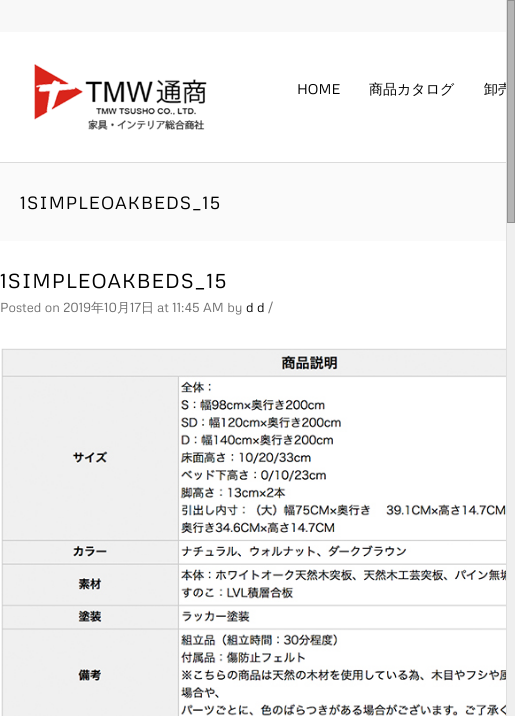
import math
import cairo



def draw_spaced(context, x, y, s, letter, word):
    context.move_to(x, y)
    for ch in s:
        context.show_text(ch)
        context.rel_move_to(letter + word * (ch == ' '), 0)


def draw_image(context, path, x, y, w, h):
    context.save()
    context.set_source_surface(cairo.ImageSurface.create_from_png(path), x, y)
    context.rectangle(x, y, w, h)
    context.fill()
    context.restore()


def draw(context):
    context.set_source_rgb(1, 1, 1)
    context.paint()
    context.set_source_rgb(239 / 255, 239 / 255, 239 / 255)
    context.rectangle(507, 223, 8, 493)
    context.fill()
    context.set_source_rgb(248 / 255, 248 / 255, 248 / 255)
    context.rectangle(0, 0, 506, 32)
    context.fill()
    context.set_source_rgb(219 / 255, 219 / 255, 219 / 255)
    context.rectangle(0, 162, 506, 1)
    context.fill()
    draw_image(context, "images/1.png", 34, 64, 173, 66)
    context.set_source_rgb(250 / 255, 250 / 255, 250 / 255)
    context.rectangle(0, 163, 506, 78)
    context.fill()
    draw_image(context, "images/2.png", 1, 348, 505, 368)
    context.select_font_face("Metrophobic")
    context.set_font_size(14)
    context.set_source_rgb(0, 0, 0)
    context.move_to(297, 94)
    context.show_text("HOME")
    context.select_font_face("WenQuanYi Zen Hei Medium")
    context.move_to(369, 94)
    context.show_text("商品カタログ")
    context.move_to(484, 94)
    context.show_text("卸売")
    context.set_source_rgb(181 / 255, 181 / 255, 181 / 255)
    context.rectangle(507.5, 0.5, 7, 222)
    context.fill_preserve()
    context.set_source_rgb(144 / 255, 144 / 255, 144 / 255)
    context.set_line_width(1)
    context.stroke()
    context.set_source_rgb(223 / 255, 223 / 255, 223 / 255)
    context.rectangle(506, 0, 1, 716)
    context.fill()
    context.select_font_face("Metrophobic")
    context.set_font_size(17.5)
    context.set_source_rgb(0, 0, 0)
    draw_spaced(context, 20, 209, "1SIMPLEOAKBEDS_15", 1, 0)
    context.set_font_size(20)
    draw_spaced(context, 0, 288, "1SIMPLEOAKBEDS_15", 1, 0)
    context.set_font_size(13)
    context.set_source_rgb(111 / 255, 111 / 255, 111 / 255)
    context.move_to(0, 312)
    context.show_text("Posted on 2019")
    context.select_font_face("WenQuanYi Zen Hei Medium")
    context.move_to(91, 312)
    context.show_text("年")
    context.select_font_face("Metrophobic")
    context.move_to(104, 312)
    context.show_text("10")
    context.select_font_face("WenQuanYi Zen Hei Medium")
    context.move_to(117, 312)
    context.show_text("月")
    context.select_font_face("Metrophobic")
    context.move_to(130, 312)
    context.show_text("17")
    context.select_font_face("WenQuanYi Zen Hei Medium")
    context.move_to(141, 312)
    context.show_text("日")
    context.select_font_face("Metrophobic")
    context.move_to(157, 312)
    context.show_text("at 11:45 AM by")
    context.set_source_rgb(0, 0, 0)
    context.move_to(246, 312)
    context.show_text("d d")
    context.set_source_rgb(111 / 255, 111 / 255, 111 / 255)
    context.move_to(268, 312)
    context.show_text("/")


surface = cairo.ImageSurface(cairo.Format.RGB24, 515, 716)
context = cairo.Context(surface)
options = cairo.FontOptions()
options.set_hint_metrics(cairo.HintMetrics.OFF)
options.set_hint_style(cairo.HintStyle.NONE)
context.set_font_options(options)
context.set_miter_limit(4)
draw(context)
surface.write_to_png("out.png")
